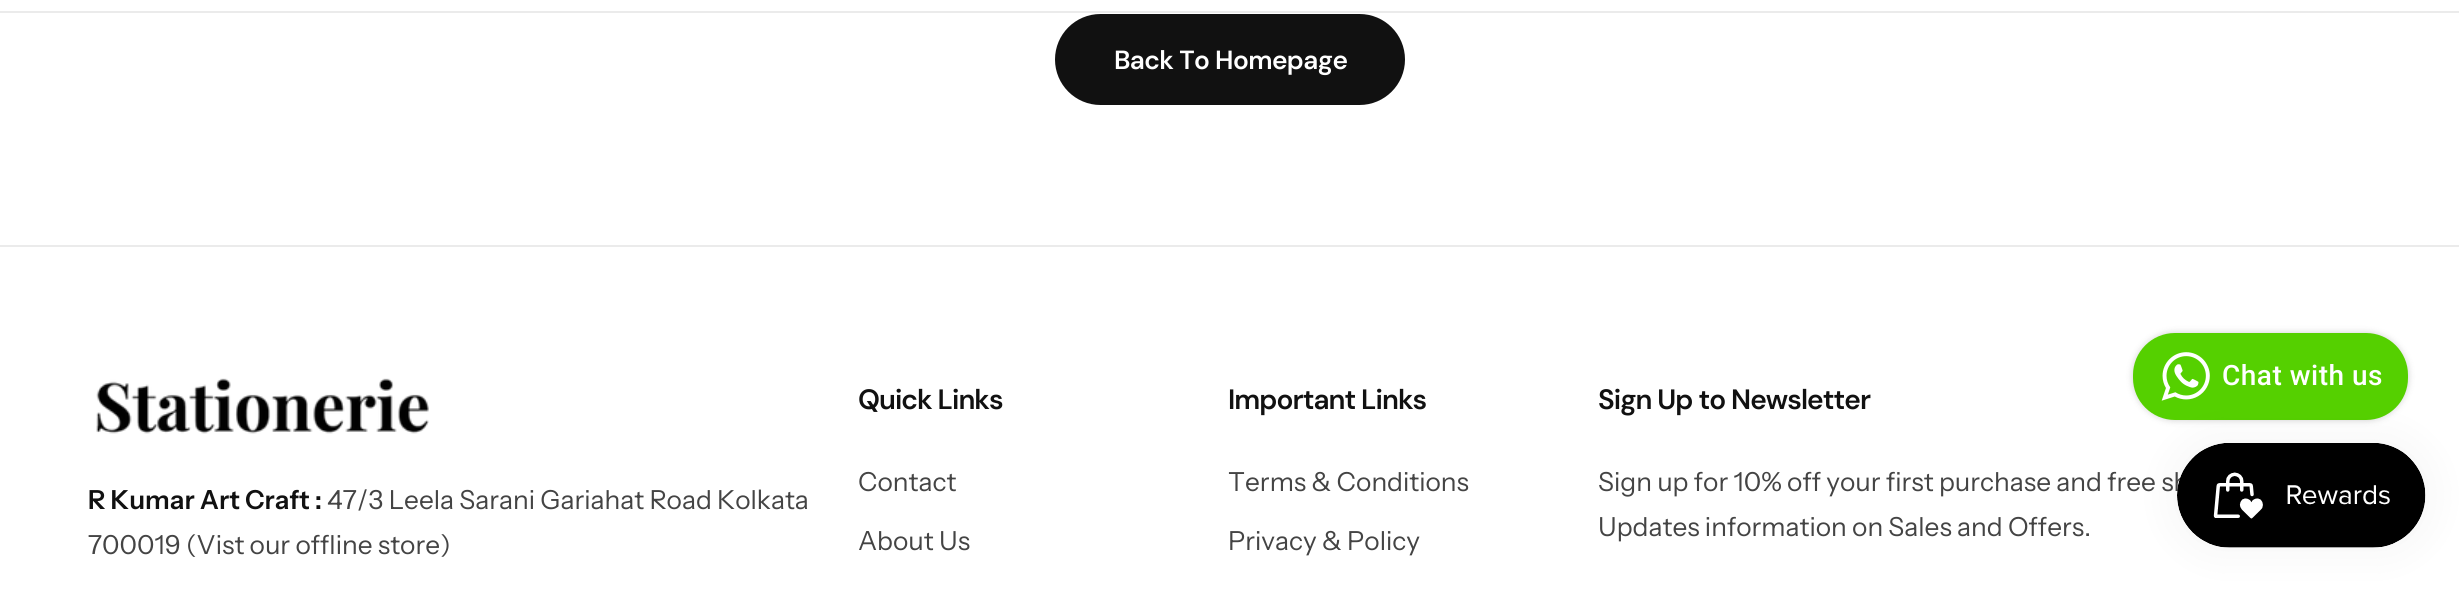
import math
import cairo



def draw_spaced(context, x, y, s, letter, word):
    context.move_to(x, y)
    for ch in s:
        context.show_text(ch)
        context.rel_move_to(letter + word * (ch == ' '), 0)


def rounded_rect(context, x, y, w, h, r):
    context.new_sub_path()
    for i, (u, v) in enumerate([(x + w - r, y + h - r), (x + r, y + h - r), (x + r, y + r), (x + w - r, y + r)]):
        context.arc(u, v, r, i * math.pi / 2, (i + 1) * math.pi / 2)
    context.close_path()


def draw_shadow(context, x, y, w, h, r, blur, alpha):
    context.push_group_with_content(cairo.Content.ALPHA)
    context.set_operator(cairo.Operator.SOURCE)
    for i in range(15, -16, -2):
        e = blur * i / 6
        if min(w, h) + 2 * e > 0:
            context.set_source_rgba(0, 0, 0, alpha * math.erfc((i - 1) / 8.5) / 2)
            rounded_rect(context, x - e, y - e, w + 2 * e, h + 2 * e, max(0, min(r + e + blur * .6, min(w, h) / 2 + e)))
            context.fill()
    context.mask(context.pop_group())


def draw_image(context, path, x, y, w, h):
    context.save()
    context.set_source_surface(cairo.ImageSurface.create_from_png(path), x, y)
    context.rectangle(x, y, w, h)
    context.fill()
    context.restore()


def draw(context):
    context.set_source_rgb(1, 1, 1)
    context.paint()
    context.set_source_rgb(235 / 255, 235 / 255, 235 / 255)
    context.rectangle(0, 11, 2459, 2)
    context.fill()
    context.set_source_rgb(17 / 255, 17 / 255, 17 / 255)
    rounded_rect(context, 1056, 15, 348, 89, 44.5)
    context.fill_preserve()
    context.stroke()
    context.set_source_rgb(0, 0, 0)
    draw_shadow(context, 2133, 333, 275, 87, 42, 3.5, 0.2)
    context.set_source_rgb(85 / 255, 208 / 255, 0)
    rounded_rect(context, 2133, 333, 275, 87, 42)
    context.fill()
    draw_image(context, "images/1.png", 2161, 352, 49, 49)
    context.set_source_rgb(235 / 255, 235 / 255, 235 / 255)
    context.rectangle(0, 245, 2459, 2)
    context.fill()
    draw_image(context, "images/2.png", 96, 378, 333, 56)
    context.set_source_rgb(0, 0, 0)
    draw_shadow(context, 2177, 443, 249, 105, 52.5, 22, 0.05)
    context.select_font_face("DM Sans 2 SemiBold")
    context.set_font_size(26.25)
    context.set_source_rgb(1, 1, 1)
    draw_spaced(context, 1114, 69, "Back To Homepage", -0.6, 0)
    context.select_font_face("Roboto Medium")
    context.set_font_size(28)
    draw_spaced(context, 2222, 385, "Chat with us", 0.5, 0)
    context.select_font_face("Instrument Sans SemiBold")
    context.set_font_size(26.25)
    context.set_source_rgb(17 / 255, 17 / 255, 17 / 255)
    context.move_to(88, 509)
    context.show_text("R Kumar Art Craft :")
    context.select_font_face("Instrument Sans")
    context.set_source_rgb(68 / 255, 68 / 255, 68 / 255)
    context.move_to(327, 509)
    context.show_text("47/3 Leela Sarani Gariahat Road Kolkata")
    context.move_to(88, 554)
    context.show_text("700019 (Vist our offline store)")
    context.select_font_face("DM Sans SemiBold")
    context.set_font_size(28)
    context.set_source_rgb(17 / 255, 17 / 255, 17 / 255)
    draw_spaced(context, 858, 409, "Quick Links", -0.95, 0)
    context.select_font_face("Instrument Sans")
    context.set_font_size(26.25)
    context.set_source_rgb(68 / 255, 68 / 255, 68 / 255)
    context.move_to(858, 491)
    context.show_text("Contact")
    context.move_to(858, 550)
    context.show_text("About Us")
    context.select_font_face("DM Sans SemiBold")
    context.set_font_size(28)
    context.set_source_rgb(17 / 255, 17 / 255, 17 / 255)
    draw_spaced(context, 1228, 409, "Important Links", -0.95, 0)
    context.select_font_face("Instrument Sans")
    context.set_font_size(26.25)
    context.set_source_rgb(68 / 255, 68 / 255, 68 / 255)
    context.move_to(1228, 491)
    context.show_text("Terms & Conditions")
    context.move_to(1228, 550)
    context.show_text("Privacy & Policy")
    context.select_font_face("DM Sans SemiBold")
    context.set_font_size(28)
    context.set_source_rgb(17 / 255, 17 / 255, 17 / 255)
    draw_spaced(context, 1598, 409, "Sign Up to Newsletter", -0.95, 0)
    context.select_font_face("Instrument Sans")
    context.set_font_size(26.25)
    context.set_source_rgb(68 / 255, 68 / 255, 68 / 255)
    context.move_to(1598, 491)
    context.show_text("Sign up for 10% off your first purchase and free sh")
    context.move_to(1598, 536)
    context.show_text("Updates information on Sales and Offers.")
    draw_image(context, "images/3.png", 2177, 443, 249, 105)


surface = cairo.ImageSurface(cairo.Format.RGB24, 2459, 590)
context = cairo.Context(surface)
options = cairo.FontOptions()
options.set_hint_metrics(cairo.HintMetrics.OFF)
options.set_hint_style(cairo.HintStyle.NONE)
context.set_font_options(options)
context.set_miter_limit(4)
draw(context)
surface.write_to_png("out.png")
